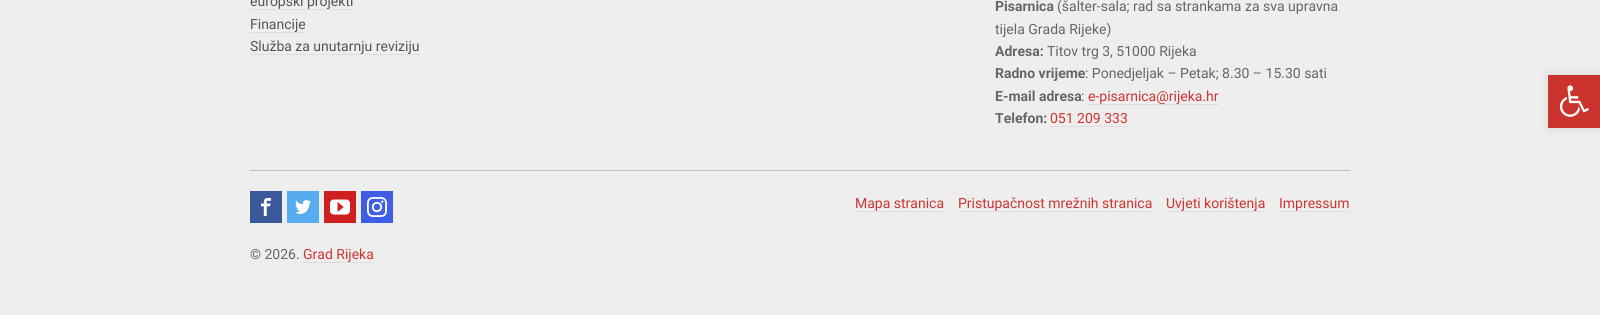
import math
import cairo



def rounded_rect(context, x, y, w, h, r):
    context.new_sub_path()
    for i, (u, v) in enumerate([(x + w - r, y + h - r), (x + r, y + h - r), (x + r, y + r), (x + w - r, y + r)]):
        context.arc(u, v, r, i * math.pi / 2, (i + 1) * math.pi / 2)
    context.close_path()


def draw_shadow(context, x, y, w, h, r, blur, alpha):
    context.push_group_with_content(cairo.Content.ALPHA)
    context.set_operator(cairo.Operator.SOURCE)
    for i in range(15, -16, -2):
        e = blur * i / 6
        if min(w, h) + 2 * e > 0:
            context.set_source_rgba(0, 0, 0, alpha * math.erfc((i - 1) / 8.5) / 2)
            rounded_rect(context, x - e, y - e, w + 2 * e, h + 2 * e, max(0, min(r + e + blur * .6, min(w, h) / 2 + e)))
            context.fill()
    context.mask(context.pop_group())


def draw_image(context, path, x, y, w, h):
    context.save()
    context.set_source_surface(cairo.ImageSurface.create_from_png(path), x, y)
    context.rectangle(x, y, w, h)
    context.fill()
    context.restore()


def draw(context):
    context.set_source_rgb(238 / 255, 238 / 255, 238 / 255)
    context.paint()
    context.set_source_rgb(221 / 255, 221 / 255, 221 / 255)
    context.rectangle(250, 9, 103, 1)
    context.fill()
    context.rectangle(250, 32, 56, 1)
    context.fill()
    context.rectangle(250, 54, 170, 1)
    context.fill()
    context.rectangle(1088, 104, 131, 1)
    context.fill()
    context.rectangle(1050, 126, 78, 1)
    context.fill()
    context.set_source_rgb(194 / 255, 194 / 255, 194 / 255)
    context.rectangle(250, 170, 1100, 1)
    context.fill()
    context.set_source_rgb(1, 1, 1)
    context.rectangle(261, 198, 10, 18)
    context.fill()
    draw_image(context, "images/1.png", 250, 191, 32, 32)
    context.rectangle(295, 200, 16, 14)
    context.fill()
    draw_image(context, "images/2.png", 287, 191, 32, 32)
    context.rectangle(330, 199, 20, 16)
    context.fill()
    draw_image(context, "images/3.png", 324, 191, 32, 32)
    context.rectangle(367, 197, 20, 20)
    context.fill()
    draw_image(context, "images/4.png", 361, 191, 32, 32)
    context.set_source_rgb(221 / 255, 221 / 255, 221 / 255)
    context.rectangle(855, 211, 89, 1)
    context.fill()
    context.rectangle(958, 211, 194, 1)
    context.fill()
    context.rectangle(1166, 211, 99, 1)
    context.fill()
    context.rectangle(1279, 211, 71, 1)
    context.fill()
    context.rectangle(303, 262, 71, 1)
    context.fill()
    context.set_source_rgb(0, 0, 0)
    draw_shadow(context, 1548, 75, 52, 53, 0, 5, 0.1)
    context.set_source_rgb(203 / 255, 52 / 255, 46 / 255)
    context.rectangle(1548, 75, 52, 53)
    context.fill()
    draw_image(context, "images/5.png", 1559, 85, 30, 32)
    context.select_font_face("Roboto")
    context.set_font_size(14)
    context.set_source_rgb(85 / 255, 85 / 255, 85 / 255)
    context.move_to(250, 6)
    context.show_text("europski projekti")
    context.move_to(250, 29)
    context.show_text("Financije")
    context.move_to(250, 51)
    context.show_text("Služba za unutarnju reviziju")
    context.select_font_face("Roboto", cairo.FontSlant.NORMAL, cairo.FontWeight.BOLD)
    context.set_source_rgb(102 / 255, 102 / 255, 102 / 255)
    context.move_to(995, 11)
    context.show_text("Pisarnica")
    context.select_font_face("Roboto")
    context.move_to(1057, 11)
    context.show_text("(šalter-sala; rad sa strankama za sva upravna")
    context.move_to(995, 34)
    context.show_text("tijela Grada Rijeke)")
    context.select_font_face("Roboto", cairo.FontSlant.NORMAL, cairo.FontWeight.BOLD)
    context.move_to(995, 56)
    context.show_text("Adresa:")
    context.select_font_face("Roboto")
    context.move_to(1047, 56)
    context.show_text("Titov trg 3, 51000 Rijeka")
    context.select_font_face("Roboto", cairo.FontSlant.NORMAL, cairo.FontWeight.BOLD)
    context.move_to(995, 78)
    context.show_text("Radno vrijeme")
    context.select_font_face("Roboto")
    context.move_to(1085, 78)
    context.show_text(": Ponedjeljak – Petak; 8.30 – 15.30 sati")
    context.select_font_face("Roboto", cairo.FontSlant.NORMAL, cairo.FontWeight.BOLD)
    context.move_to(995, 101)
    context.show_text("E-mail adresa")
    context.select_font_face("Roboto")
    context.move_to(1081, 101)
    context.show_text(":")
    context.set_source_rgb(205 / 255, 53 / 255, 47 / 255)
    context.move_to(1088, 101)
    context.show_text("e-pisarnica@rijeka.hr")
    context.select_font_face("Roboto", cairo.FontSlant.NORMAL, cairo.FontWeight.BOLD)
    context.set_source_rgb(102 / 255, 102 / 255, 102 / 255)
    context.move_to(995, 123)
    context.show_text("Telefon:")
    context.select_font_face("Roboto")
    context.set_source_rgb(205 / 255, 53 / 255, 47 / 255)
    context.move_to(1050, 123)
    context.show_text("051 209 333")
    context.move_to(855, 208)
    context.show_text("Mapa stranica")
    context.move_to(958, 208)
    context.show_text("Pristupačnost mrežnih stranica")
    context.move_to(1166, 208)
    context.show_text("Uvjeti korištenja")
    context.move_to(1279, 208)
    context.show_text("Impressum")
    context.set_source_rgb(102 / 255, 102 / 255, 102 / 255)
    context.move_to(250, 259)
    context.show_text("© 2026.")
    context.set_source_rgb(205 / 255, 53 / 255, 47 / 255)
    context.move_to(303, 259)
    context.show_text("Grad Rijeka")


surface = cairo.ImageSurface(cairo.Format.RGB24, 1600, 315)
context = cairo.Context(surface)
options = cairo.FontOptions()
options.set_hint_metrics(cairo.HintMetrics.OFF)
options.set_hint_style(cairo.HintStyle.NONE)
context.set_font_options(options)
context.set_miter_limit(4)
draw(context)
surface.write_to_png("out.png")
